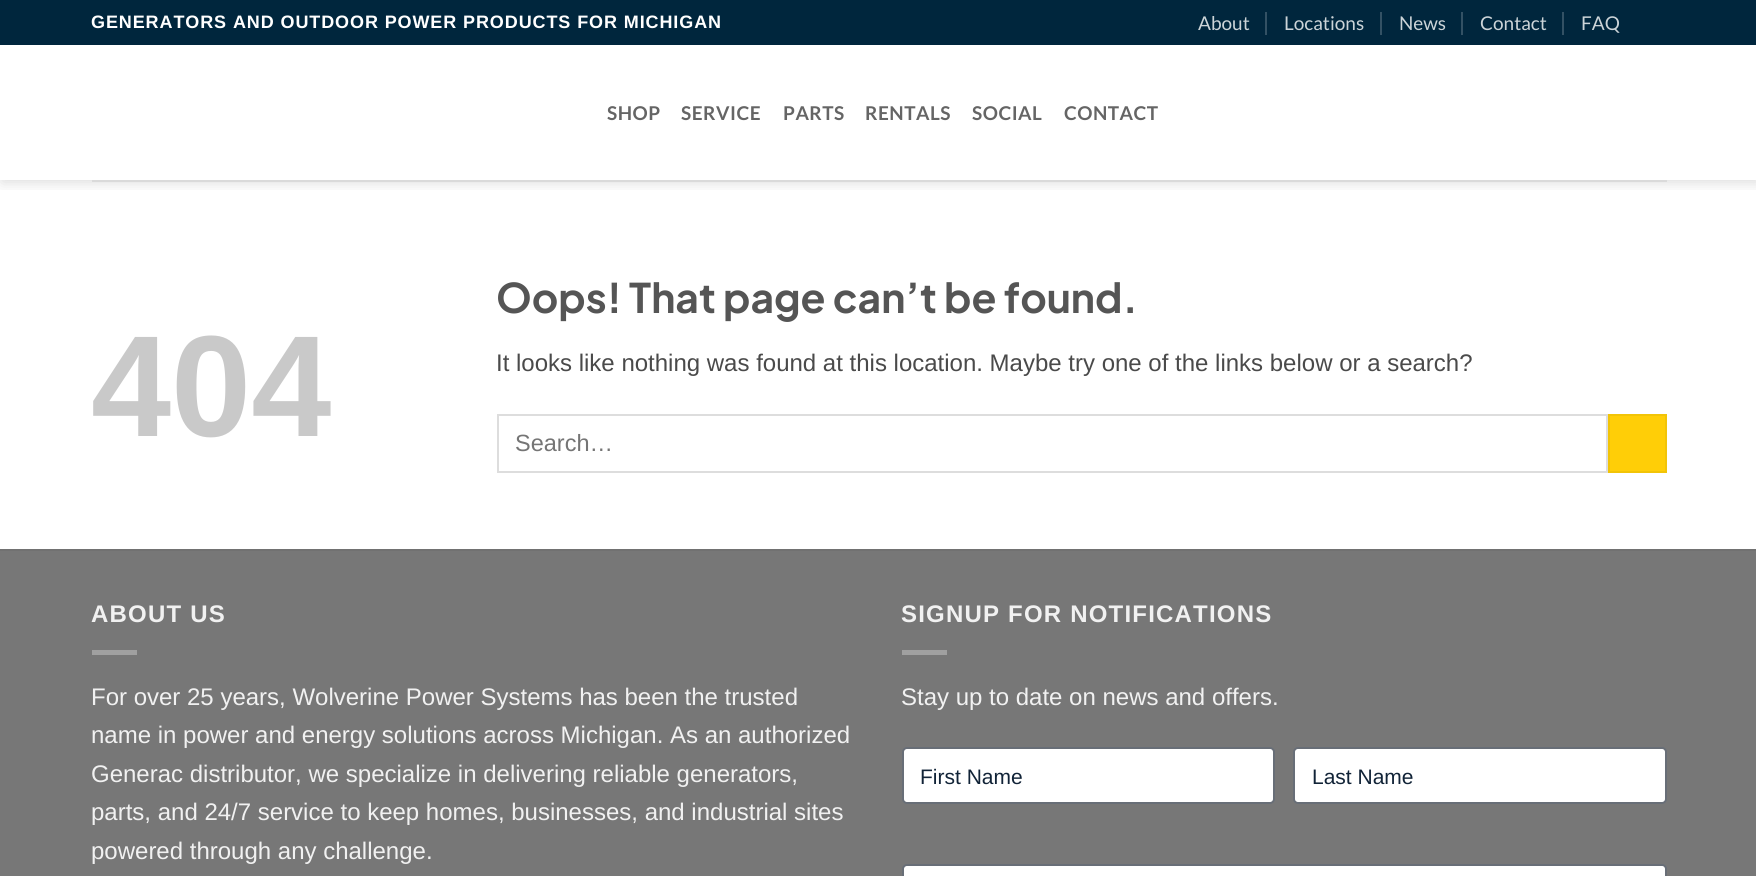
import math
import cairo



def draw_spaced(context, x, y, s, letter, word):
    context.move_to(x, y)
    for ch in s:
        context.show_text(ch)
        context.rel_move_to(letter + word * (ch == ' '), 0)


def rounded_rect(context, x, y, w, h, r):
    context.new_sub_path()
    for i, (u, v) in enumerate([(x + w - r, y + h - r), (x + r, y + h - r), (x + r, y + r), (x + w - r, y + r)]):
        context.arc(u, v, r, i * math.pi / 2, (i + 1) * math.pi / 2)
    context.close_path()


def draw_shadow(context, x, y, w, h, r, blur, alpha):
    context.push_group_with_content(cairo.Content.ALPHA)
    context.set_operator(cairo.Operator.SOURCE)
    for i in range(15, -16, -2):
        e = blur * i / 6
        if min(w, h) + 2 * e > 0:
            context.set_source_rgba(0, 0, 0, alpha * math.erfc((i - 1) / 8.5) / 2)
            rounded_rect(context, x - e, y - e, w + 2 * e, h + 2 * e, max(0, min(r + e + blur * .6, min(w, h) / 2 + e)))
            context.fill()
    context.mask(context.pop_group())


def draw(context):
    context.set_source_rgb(1, 1, 1)
    context.paint()
    context.save()
    context.rectangle(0, 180, 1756, 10)
    context.clip()
    context.set_source_rgb(0, 0, 0)
    draw_shadow(context, 2, 2, 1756, 180, 0, 7.5, 0.15)
    context.restore()
    context.set_source_rgb(0, 38 / 255, 61 / 255)
    context.rectangle(0, 0, 1756, 45)
    context.fill()
    context.set_source_rgb(51 / 255, 81 / 255, 100 / 255)
    context.rectangle(1265, 12, 2, 23)
    context.fill()
    context.rectangle(1380, 12, 2, 23)
    context.fill()
    context.rectangle(1461, 12, 2, 23)
    context.fill()
    context.rectangle(1562, 12, 2, 23)
    context.fill()
    context.set_source_rgb(218 / 255, 218 / 255, 218 / 255)
    context.rectangle(92, 180, 1575, 2)
    context.fill()
    context.rectangle(498, 415, 1109, 57)
    context.set_source_rgb(221 / 255, 221 / 255, 221 / 255)
    context.stroke()
    context.set_source_rgb(1, 206 / 255, 7 / 255)
    context.rectangle(1609, 415, 57, 57)
    context.fill_preserve()
    context.set_source_rgb(242 / 255, 196 / 255, 7 / 255)
    context.stroke()
    context.set_source_rgb(119 / 255, 119 / 255, 119 / 255)
    context.rectangle(0, 551, 1756, 325)
    context.fill()
    context.set_source_rgb(113 / 255, 113 / 255, 113 / 255)
    context.rectangle(0, 549, 1756, 2)
    context.fill()
    context.set_source_rgb(160 / 255, 160 / 255, 160 / 255)
    context.rectangle(92, 650, 45, 5)
    context.fill()
    context.rectangle(902, 650, 45, 5)
    context.fill()
    context.set_source_rgb(1, 1, 1)
    rounded_rect(context, 903, 748, 371, 55, 4)
    context.fill_preserve()
    context.set_source_rgb(104 / 255, 110 / 255, 119 / 255)
    context.stroke()
    context.set_source_rgb(1, 1, 1)
    rounded_rect(context, 1294, 748, 372, 55, 4)
    context.fill_preserve()
    context.set_source_rgb(104 / 255, 110 / 255, 119 / 255)
    context.stroke()
    context.set_source_rgb(1, 1, 1)
    rounded_rect(context, 903, 865, 763, 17, 4)
    context.fill_preserve()
    context.set_source_rgb(104 / 255, 110 / 255, 119 / 255)
    context.stroke()
    context.select_font_face("Liberation Sans", cairo.FontSlant.NORMAL, cairo.FontWeight.BOLD)
    context.set_font_size(18)
    context.set_source_rgb(1, 1, 1)
    draw_spaced(context, 91, 28, "GENERATORS AND OUTDOOR POWER PRODUCTS FOR MICHIGAN", 0.9, 0)
    context.select_font_face("Lato")
    context.set_font_size(19)
    context.set_source_rgb(204 / 255, 212 / 255, 216 / 255)
    context.move_to(1198, 30)
    context.show_text("About")
    context.move_to(1284, 30)
    context.show_text("Locations")
    context.move_to(1399, 30)
    context.show_text("News")
    context.move_to(1480, 30)
    context.show_text("Contact")
    context.move_to(1581, 30)
    context.show_text("FAQ")
    context.select_font_face("Lato", cairo.FontSlant.NORMAL, cairo.FontWeight.BOLD)
    context.set_source_rgb(101 / 255, 101 / 255, 101 / 255)
    draw_spaced(context, 607, 120, "SHOP", 0.5, 0)
    draw_spaced(context, 681, 120, "SERVICE", 0.5, 0)
    draw_spaced(context, 783, 120, "PARTS", 0.5, 0)
    draw_spaced(context, 865, 120, "RENTALS", 0.5, 0)
    draw_spaced(context, 972, 120, "SOCIAL", 0.5, 0)
    draw_spaced(context, 1064, 120, "CONTACT", 0.5, 0)
    context.select_font_face("Liberation Sans", cairo.FontSlant.NORMAL, cairo.FontWeight.BOLD)
    context.set_font_size(144)
    context.set_source_rgb(201 / 255, 201 / 255, 201 / 255)
    context.move_to(91, 436)
    context.show_text("404")
    context.select_font_face("Plus Jakarta Sans", cairo.FontSlant.NORMAL, cairo.FontWeight.BOLD)
    context.set_font_size(40.75)
    context.set_source_rgb(85 / 255, 85 / 255, 85 / 255)
    context.move_to(496, 313)
    context.show_text("Oops! That page can’t be found.")
    context.select_font_face("Liberation Sans")
    context.set_font_size(24)
    context.set_source_rgb(74 / 255, 74 / 255, 74 / 255)
    context.move_to(496, 371)
    context.show_text("It looks like nothing was found at this location. Maybe try one of the links below or a search?")
    context.set_font_size(23.5)
    context.set_source_rgb(117 / 255, 117 / 255, 117 / 255)
    context.move_to(515, 451)
    context.show_text("Search…")
    context.select_font_face("Liberation Sans", cairo.FontSlant.NORMAL, cairo.FontWeight.BOLD)
    context.set_font_size(24)
    context.set_source_rgb(241 / 255, 241 / 255, 241 / 255)
    draw_spaced(context, 91, 622, "ABOUT US", 1.2, 0)
    context.select_font_face("Liberation Sans")
    context.move_to(91, 705)
    context.show_text("For over 25 years, Wolverine Power Systems has been the trusted")
    context.move_to(91, 743)
    context.show_text("name in power and energy solutions across Michigan. As an authorized")
    context.move_to(91, 782)
    context.show_text("Generac distributor, we specialize in delivering reliable generators,")
    context.move_to(91, 820)
    context.show_text("parts, and 24/7 service to keep homes, businesses, and industrial sites")
    context.move_to(91, 859)
    context.show_text("powered through any challenge.")
    context.select_font_face("Liberation Sans", cairo.FontSlant.NORMAL, cairo.FontWeight.BOLD)
    draw_spaced(context, 901, 622, "SIGNUP FOR NOTIFICATIONS", 1.2, 0)
    context.select_font_face("Liberation Sans")
    context.move_to(901, 705)
    context.show_text("Stay up to date on news and offers.")
    context.set_font_size(21)
    context.set_source_rgb(17 / 255, 35 / 255, 55 / 255)
    context.move_to(920, 784)
    context.show_text("First Name")
    context.move_to(1312, 784)
    context.show_text("Last Name")


surface = cairo.ImageSurface(cairo.Format.RGB24, 1756, 876)
context = cairo.Context(surface)
options = cairo.FontOptions()
options.set_hint_metrics(cairo.HintMetrics.OFF)
options.set_hint_style(cairo.HintStyle.NONE)
context.set_font_options(options)
context.set_miter_limit(4)
draw(context)
surface.write_to_png("out.png")
